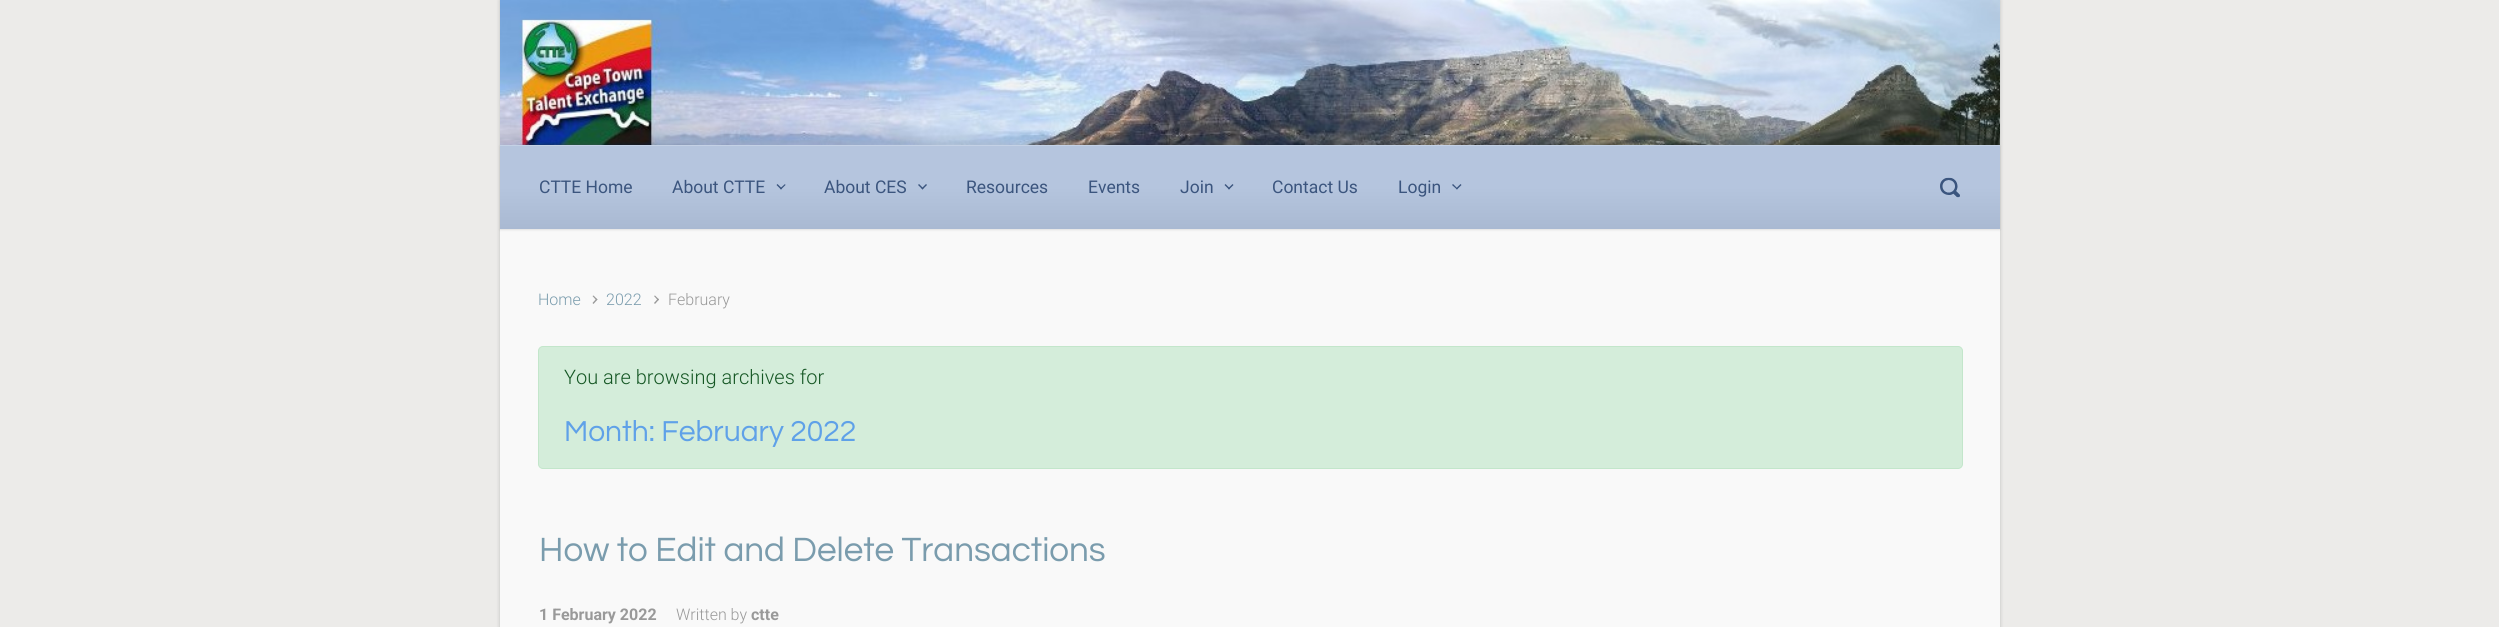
import math
import cairo



def rounded_rect(context, x, y, w, h, r):
    context.new_sub_path()
    for i, (u, v) in enumerate([(x + w - r, y + h - r), (x + r, y + h - r), (x + r, y + r), (x + w - r, y + r)]):
        context.arc(u, v, r, i * math.pi / 2, (i + 1) * math.pi / 2)
    context.close_path()


def draw_shadow(context, x, y, w, h, r, blur, alpha):
    context.push_group_with_content(cairo.Content.ALPHA)
    context.set_operator(cairo.Operator.SOURCE)
    for i in range(15, -16, -2):
        e = blur * i / 6
        if min(w, h) + 2 * e > 0:
            context.set_source_rgba(0, 0, 0, alpha * math.erfc((i - 1) / 8.5) / 2)
            rounded_rect(context, x - e, y - e, w + 2 * e, h + 2 * e, max(0, min(r + e + blur * .6, min(w, h) / 2 + e)))
            context.fill()
    context.mask(context.pop_group())


def draw_image(context, path, x, y, w, h):
    context.save()
    context.set_source_surface(cairo.ImageSurface.create_from_png(path), x, y)
    context.rectangle(x, y, w, h)
    context.fill()
    context.restore()


def draw(context):
    context.set_source_rgb(236 / 255, 235 / 255, 233 / 255)
    context.paint()
    context.set_source_rgb(0, 0, 0)
    draw_shadow(context, 500, 0, 1500, 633, 0, 2, 0.2)
    context.set_source_rgb(249 / 255, 249 / 255, 249 / 255)
    context.rectangle(500, 229, 1500, 398)
    context.fill()
    context.set_source_rgb(0, 0, 0)
    draw_shadow(context, 500, 146, 1500, 84, 0, 1, 0.1)
    draw_image(context, "images/1.png", 500, 0, 1500, 145)
    gradient = cairo.LinearGradient(1250, 145, 1250, 229)
    gradient.add_color_stop_rgba(0.5, 181 / 255, 197 / 255, 222 / 255, 1)
    gradient.add_color_stop_rgba(1, 169 / 255, 185 / 255, 210 / 255, 1)
    context.set_source(gradient)
    context.rectangle(500, 146, 1500, 83)
    context.fill()
    context.set_source_rgb(196 / 255, 209 / 255, 229 / 255)
    context.rectangle(500, 145, 1500, 1)
    context.fill()
    context.set_source_rgb(59 / 255, 85 / 255, 126 / 255)
    context.new_path()
    context.move_to(785, 184)
    context.line_to(785.5, 185)
    context.line_to(781, 189.5)
    context.line_to(780, 188.5)
    context.close_path()
    context.fill()
    context.new_path()
    context.move_to(777.5, 184)
    context.line_to(782, 188.5)
    context.line_to(781, 189.5)
    context.line_to(776.5, 185)
    context.close_path()
    context.fill()
    context.new_path()
    context.move_to(926, 184)
    context.line_to(927, 185)
    context.line_to(922.5, 189.5)
    context.line_to(921.5, 188.5)
    context.close_path()
    context.fill()
    context.new_path()
    context.move_to(919, 184)
    context.line_to(923.5, 188.5)
    context.line_to(922.5, 189.5)
    context.line_to(918, 185)
    context.close_path()
    context.fill()
    context.new_path()
    context.move_to(1232.5, 184)
    context.line_to(1233.5, 185)
    context.line_to(1229, 189.5)
    context.line_to(1228, 188.5)
    context.close_path()
    context.fill()
    context.new_path()
    context.move_to(1225.5, 184)
    context.line_to(1230, 188.5)
    context.line_to(1229, 189.5)
    context.line_to(1224.5, 185)
    context.close_path()
    context.fill()
    context.new_path()
    context.move_to(1460.5, 184)
    context.line_to(1461.5, 185)
    context.line_to(1457, 189.5)
    context.line_to(1456, 188.5)
    context.close_path()
    context.fill()
    context.new_path()
    context.move_to(1453, 184)
    context.line_to(1457.5, 188.5)
    context.line_to(1457, 189.5)
    context.line_to(1452, 185)
    context.close_path()
    context.fill()
    draw_image(context, "images/2.png", 1940, 177, 20, 21)
    context.set_source_rgb(153 / 255, 153 / 255, 153 / 255)
    context.new_path()
    context.move_to(592.5, 296)
    context.line_to(593.5, 295.5)
    context.line_to(597.5, 299.5)
    context.line_to(596.5, 300.5)
    context.close_path()
    context.fill()
    context.new_path()
    context.move_to(592.5, 303)
    context.line_to(596.5, 298.5)
    context.line_to(597.5, 299.5)
    context.line_to(593.5, 304)
    context.close_path()
    context.fill()
    context.new_path()
    context.move_to(654, 296)
    context.line_to(655, 295.5)
    context.line_to(659, 299.5)
    context.line_to(658, 300.5)
    context.close_path()
    context.fill()
    context.new_path()
    context.move_to(654, 303)
    context.line_to(658, 298.5)
    context.line_to(659, 299.5)
    context.line_to(655, 304)
    context.close_path()
    context.fill()
    context.set_source_rgb(212 / 255, 237 / 255, 218 / 255)
    rounded_rect(context, 538.5, 346.5, 1424, 122, 4.5)
    context.fill_preserve()
    context.set_source_rgb(195 / 255, 230 / 255, 203 / 255)
    context.set_line_width(1)
    context.stroke()
    context.select_font_face("Roboto")
    context.set_font_size(17.5)
    context.set_source_rgb(59 / 255, 85 / 255, 126 / 255)
    context.move_to(539, 193)
    context.show_text("CTTE Home")
    context.move_to(672, 193)
    context.show_text("About CTTE")
    context.move_to(824, 193)
    context.show_text("About CES")
    context.move_to(966, 193)
    context.show_text("Resources")
    context.move_to(1088, 193)
    context.show_text("Events")
    context.move_to(1180, 193)
    context.show_text("Join")
    context.move_to(1272, 193)
    context.show_text("Contact Us")
    context.move_to(1398, 193)
    context.show_text("Login")
    context.select_font_face("Roboto Light")
    context.set_font_size(16)
    context.set_source_rgb(122 / 255, 156 / 255, 173 / 255)
    context.move_to(538, 305)
    context.show_text("Home")
    context.move_to(606, 305)
    context.show_text("2022")
    context.set_source_rgb(153 / 255, 153 / 255, 153 / 255)
    context.move_to(668, 305)
    context.show_text("February")
    context.set_font_size(20)
    context.set_source_rgb(21 / 255, 87 / 255, 36 / 255)
    context.move_to(564, 384)
    context.show_text("You are browsing archives for")
    context.select_font_face("Questrial")
    context.set_font_size(30)
    context.set_source_rgb(95 / 255, 161 / 255, 232 / 255)
    context.move_to(564, 441)
    context.show_text("Month: February 2022")
    context.set_font_size(35)
    context.set_source_rgb(122 / 255, 156 / 255, 173 / 255)
    context.move_to(539, 561)
    context.show_text("How to Edit and Delete Transactions")
    context.select_font_face("Roboto", cairo.FontSlant.NORMAL, cairo.FontWeight.BOLD)
    context.set_font_size(16)
    context.set_source_rgb(153 / 255, 153 / 255, 153 / 255)
    context.move_to(539, 620)
    context.show_text("1 February 2022")
    context.select_font_face("Roboto Light")
    context.move_to(676, 620)
    context.show_text("Written by")
    context.select_font_face("Roboto", cairo.FontSlant.NORMAL, cairo.FontWeight.BOLD)
    context.move_to(751, 620)
    context.show_text("ctte")


surface = cairo.ImageSurface(cairo.Format.RGB24, 2499, 627)
context = cairo.Context(surface)
options = cairo.FontOptions()
options.set_hint_metrics(cairo.HintMetrics.OFF)
options.set_hint_style(cairo.HintStyle.NONE)
context.set_font_options(options)
context.set_miter_limit(4)
draw(context)
surface.write_to_png("out.png")
